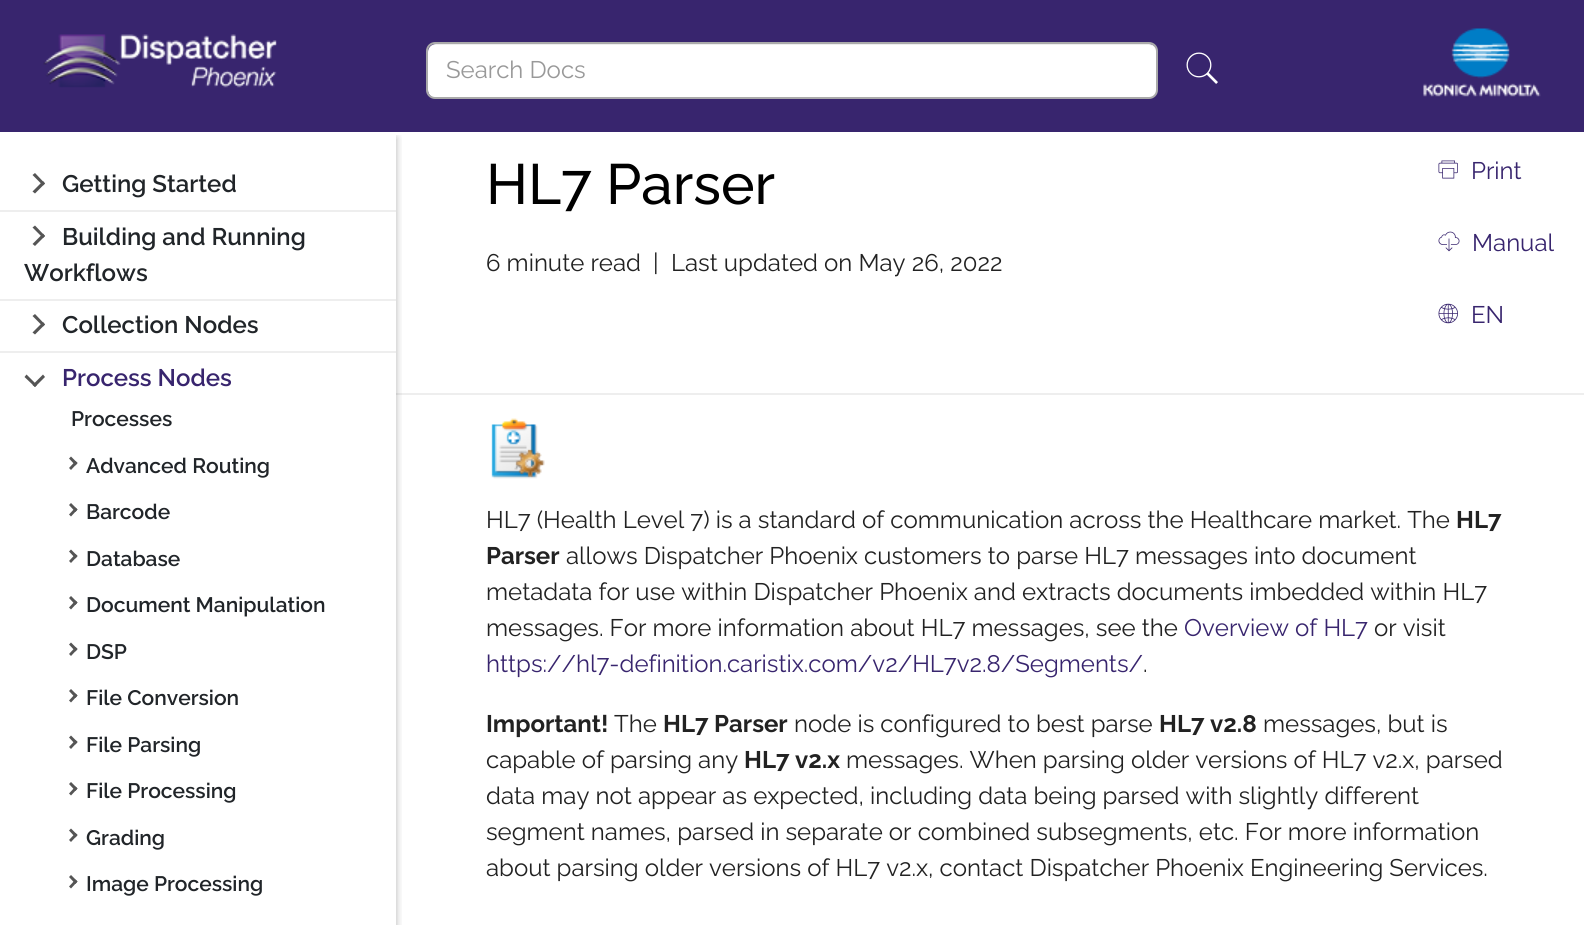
import math
import cairo



def rounded_rect(context, x, y, w, h, r):
    context.new_sub_path()
    for i, (u, v) in enumerate([(x + w - r, y + h - r), (x + r, y + h - r), (x + r, y + r), (x + w - r, y + r)]):
        context.arc(u, v, r, i * math.pi / 2, (i + 1) * math.pi / 2)
    context.close_path()


def draw_shadow(context, x, y, w, h, r, blur, alpha):
    context.push_group_with_content(cairo.Content.ALPHA)
    context.set_operator(cairo.Operator.SOURCE)
    for i in range(15, -16, -2):
        e = blur * i / 6
        if min(w, h) + 2 * e > 0:
            context.set_source_rgba(0, 0, 0, alpha * math.erfc((i - 1) / 8.5) / 2)
            rounded_rect(context, x - e, y - e, w + 2 * e, h + 2 * e, max(0, min(r + e + blur * .6, min(w, h) / 2 + e)))
            context.fill()
    context.mask(context.pop_group())


def draw_image(context, path, x, y, w, h):
    context.save()
    context.set_source_surface(cairo.ImageSurface.create_from_png(path), x, y)
    context.rectangle(x, y, w, h)
    context.fill()
    context.restore()


def draw(context):
    context.set_source_rgb(1, 1, 1)
    context.paint()
    context.set_source_rgb(238 / 255, 238 / 255, 238 / 255)
    context.rectangle(396, 393, 1188, 2)
    context.fill()
    context.save()
    context.rectangle(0, 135, 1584, 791)
    context.clip()
    context.rectangle(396, 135, 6, 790)
    context.clip()
    context.set_source_rgb(0, 0, 0)
    draw_shadow(context, 0, 138, 396, 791, 0, 4, 0.3)
    context.restore()
    context.set_source_rgb(56 / 255, 37 / 255, 110 / 255)
    context.rectangle(0, 0, 1584, 132)
    context.fill()
    draw_image(context, "images/1.png", 43, 34, 234, 54)
    context.set_source_rgb(1, 1, 1)
    rounded_rect(context, 428, 44, 729, 54, 8)
    context.fill()
    context.set_source_rgba(0, 0, 0, 0.07)
    context.new_path()
    context.move_to(435, 45)
    context.line_to(1149, 45)
    context.curve_to(1153, 45, 1156, 48, 1156, 52)
    context.line_to(1156, 92)
    context.line_to(1156, 95)
    context.curve_to(1156, 93, 1157, 92, 1157, 90)
    context.line_to(1157, 52)
    context.curve_to(1157, 48, 1153, 44, 1149, 44)
    context.line_to(436, 44)
    context.curve_to(432, 44, 428, 48, 428, 52)
    context.curve_to(428, 48, 431, 45, 435, 45)
    context.close_path()
    context.fill()
    rounded_rect(context, 427, 43, 730, 55, 8)
    context.set_source_rgb(170 / 255, 170 / 255, 170 / 255)
    context.stroke()
    draw_image(context, "images/2.png", 1186, 52, 32, 32)
    draw_image(context, "images/3.png", 1423, 28, 118, 69)
    context.set_source_rgb(238 / 255, 238 / 255, 238 / 255)
    context.rectangle(0, 210, 396, 2)
    context.fill()
    context.set_source_rgb(85 / 255, 85 / 255, 85 / 255)
    context.new_path()
    context.move_to(35, 173)
    context.line_to(45, 183.5)
    context.line_to(43, 185.5)
    context.line_to(32.5, 175)
    context.close_path()
    context.fill()
    context.new_path()
    context.move_to(43, 181)
    context.line_to(45, 183.5)
    context.line_to(35, 193.5)
    context.line_to(32.5, 191.5)
    context.close_path()
    context.move_to(35, 225.5)
    context.line_to(45, 236)
    context.line_to(43, 238)
    context.line_to(32.5, 227.5)
    context.close_path()
    context.fill()
    context.set_source_rgb(238 / 255, 238 / 255, 238 / 255)
    context.rectangle(0, 299, 396, 2)
    context.fill()
    context.set_source_rgb(85 / 255, 85 / 255, 85 / 255)
    context.new_path()
    context.move_to(43, 233.5)
    context.line_to(45, 236)
    context.line_to(35, 246)
    context.line_to(32.5, 244)
    context.close_path()
    context.fill()
    context.set_source_rgb(238 / 255, 238 / 255, 238 / 255)
    context.rectangle(0, 351, 396, 2)
    context.fill()
    context.set_source_rgb(85 / 255, 85 / 255, 85 / 255)
    context.new_path()
    context.move_to(35, 314)
    context.line_to(45, 324.5)
    context.line_to(43, 326.5)
    context.line_to(32.5, 316)
    context.close_path()
    context.fill()
    context.new_path()
    context.move_to(43, 322)
    context.line_to(45, 324.5)
    context.line_to(35, 334.5)
    context.line_to(32.5, 332.5)
    context.close_path()
    context.fill()
    context.new_path()
    context.move_to(45, 377)
    context.line_to(35, 387)
    context.line_to(32.5, 385)
    context.line_to(43, 374.5)
    context.close_path()
    context.fill()
    context.new_path()
    context.move_to(37, 385)
    context.line_to(35, 387)
    context.line_to(24.5, 377)
    context.line_to(26.5, 374.5)
    context.close_path()
    context.fill()
    context.new_path()
    context.move_to(71, 456.5)
    context.line_to(77.5, 463)
    context.line_to(75.5, 465.5)
    context.line_to(69, 458.5)
    context.close_path()
    context.fill()
    context.new_path()
    context.move_to(75.5, 461)
    context.line_to(77.5, 463)
    context.line_to(71, 470)
    context.line_to(69, 468)
    context.close_path()
    context.move_to(71, 503)
    context.line_to(77.5, 509.5)
    context.line_to(75.5, 512)
    context.line_to(69, 505)
    context.close_path()
    context.fill()
    context.new_path()
    context.move_to(75.5, 507.5)
    context.line_to(77.5, 509.5)
    context.line_to(71, 516.5)
    context.line_to(69, 514.5)
    context.close_path()
    context.move_to(71, 549.5)
    context.line_to(77.5, 556)
    context.line_to(75.5, 558.5)
    context.line_to(69, 551.5)
    context.close_path()
    context.fill()
    context.new_path()
    context.move_to(75.5, 554)
    context.line_to(77.5, 556)
    context.line_to(71, 563)
    context.line_to(69, 561)
    context.close_path()
    context.move_to(71, 596)
    context.line_to(77.5, 602.5)
    context.line_to(75.5, 605)
    context.line_to(69, 598)
    context.close_path()
    context.fill()
    context.new_path()
    context.move_to(75.5, 600.5)
    context.line_to(77.5, 602.5)
    context.line_to(71, 609.5)
    context.line_to(69, 607.5)
    context.close_path()
    context.move_to(71, 642.5)
    context.line_to(77.5, 649)
    context.line_to(75.5, 651.5)
    context.line_to(69, 644.5)
    context.close_path()
    context.fill()
    context.new_path()
    context.move_to(75.5, 647)
    context.line_to(77.5, 649)
    context.line_to(71, 656)
    context.line_to(69, 654)
    context.close_path()
    context.move_to(71, 689)
    context.line_to(77.5, 695.5)
    context.line_to(75.5, 698)
    context.line_to(69, 691)
    context.close_path()
    context.fill()
    context.new_path()
    context.move_to(75.5, 693.5)
    context.line_to(77.5, 695.5)
    context.line_to(71, 702.5)
    context.line_to(69, 700.5)
    context.close_path()
    context.move_to(71, 735.5)
    context.line_to(77.5, 742)
    context.line_to(75.5, 744.5)
    context.line_to(69, 737.5)
    context.close_path()
    context.fill()
    context.new_path()
    context.move_to(75.5, 740)
    context.line_to(77.5, 742)
    context.line_to(71, 749)
    context.line_to(69, 747)
    context.close_path()
    context.move_to(71, 782)
    context.line_to(77.5, 788.5)
    context.line_to(75.5, 791)
    context.line_to(69, 784)
    context.close_path()
    context.fill()
    context.new_path()
    context.move_to(75.5, 786.5)
    context.line_to(77.5, 788.5)
    context.line_to(71, 795.5)
    context.line_to(69, 793.5)
    context.close_path()
    context.move_to(71, 828.5)
    context.line_to(77.5, 835)
    context.line_to(75.5, 837.5)
    context.line_to(69, 830.5)
    context.close_path()
    context.fill()
    context.new_path()
    context.move_to(75.5, 833)
    context.line_to(77.5, 835)
    context.line_to(71, 842)
    context.line_to(69, 840)
    context.close_path()
    context.move_to(71, 875)
    context.line_to(77.5, 881.5)
    context.line_to(75.5, 884)
    context.line_to(69, 877)
    context.close_path()
    context.fill()
    context.new_path()
    context.move_to(75.5, 879.5)
    context.line_to(77.5, 881.5)
    context.line_to(71, 888.5)
    context.line_to(69, 886.5)
    context.close_path()
    context.fill()
    draw_image(context, "images/4.png", 1438, 160, 20, 19)
    draw_image(context, "images/5.png", 1438, 231, 22, 21)
    draw_image(context, "images/6.png", 1438, 303, 20, 21)
    draw_image(context, "images/7.png", 491, 418, 54, 61)
    context.select_font_face("Raleway")
    context.set_font_size(24)
    context.set_source_rgb(153 / 255, 153 / 255, 153 / 255)
    context.move_to(446, 78)
    context.show_text("Search Docs")
    context.select_font_face("Raleway SemiBold")
    context.set_source_rgb(33 / 255, 37 / 255, 41 / 255)
    context.move_to(62, 192)
    context.show_text("Getting Started")
    context.move_to(62, 245)
    context.show_text("Building and Running")
    context.move_to(24, 281)
    context.show_text("Workflows")
    context.move_to(62, 333)
    context.show_text("Collection Nodes")
    context.set_source_rgb(56 / 255, 37 / 255, 110 / 255)
    context.move_to(62, 386)
    context.show_text("Process Nodes")
    context.set_font_size(21)
    context.set_source_rgb(33 / 255, 37 / 255, 41 / 255)
    context.move_to(71, 426)
    context.show_text("Processes")
    context.move_to(86, 473)
    context.show_text("Advanced Routing")
    context.move_to(86, 519)
    context.show_text("Barcode")
    context.move_to(86, 566)
    context.show_text("Database")
    context.move_to(86, 612)
    context.show_text("Document Manipulation")
    context.move_to(86, 659)
    context.show_text("DSP")
    context.move_to(86, 705)
    context.show_text("File Conversion")
    context.move_to(86, 752)
    context.show_text("File Parsing")
    context.move_to(86, 798)
    context.show_text("File Processing")
    context.move_to(86, 845)
    context.show_text("Grading")
    context.move_to(86, 891)
    context.show_text("Image Processing")
    context.select_font_face("Raleway Medium")
    context.set_font_size(56.75)
    context.set_source_rgb(0, 0, 0)
    context.move_to(486, 204)
    context.show_text("HL7 Parser")
    context.select_font_face("Raleway")
    context.set_font_size(24)
    context.set_source_rgb(34 / 255, 34 / 255, 34 / 255)
    context.move_to(486, 271)
    context.show_text("6 minute read")
    context.move_to(653, 271)
    context.show_text("|")
    context.move_to(671, 271)
    context.show_text("Last updated on May 26, 2022")
    context.set_source_rgb(56 / 255, 37 / 255, 110 / 255)
    context.move_to(1471, 179)
    context.show_text("Print")
    context.move_to(1472, 251)
    context.show_text("Manual")
    context.move_to(1471, 323)
    context.show_text("EN")
    context.set_source_rgb(34 / 255, 34 / 255, 34 / 255)
    context.move_to(486, 528)
    context.show_text("HL7 (Health Level 7) is a standard of communication across the Healthcare market. The")
    context.select_font_face("Raleway", cairo.FontSlant.NORMAL, cairo.FontWeight.BOLD)
    context.move_to(1456, 528)
    context.show_text("HL7")
    context.move_to(486, 564)
    context.show_text("Parser")
    context.select_font_face("Raleway")
    context.move_to(566, 564)
    context.show_text("allows Dispatcher Phoenix customers to parse HL7 messages into document")
    context.move_to(486, 600)
    context.show_text("metadata for use within Dispatcher Phoenix and extracts documents imbedded within HL7")
    context.move_to(486, 636)
    context.show_text("messages. For more information about HL7 messages, see the")
    context.set_source_rgb(56 / 255, 37 / 255, 110 / 255)
    context.move_to(1184, 636)
    context.show_text("Overview of HL7")
    context.set_source_rgb(34 / 255, 34 / 255, 34 / 255)
    context.move_to(1374, 636)
    context.show_text("or visit")
    context.set_source_rgb(56 / 255, 37 / 255, 110 / 255)
    context.move_to(486, 672)
    context.show_text("https://hl7-definition.caristix.com/v2/HL7v2.8/Segments/")
    context.set_source_rgb(34 / 255, 34 / 255, 34 / 255)
    context.move_to(1143, 672)
    context.show_text(".")
    context.select_font_face("Raleway", cairo.FontSlant.NORMAL, cairo.FontWeight.BOLD)
    context.move_to(486, 732)
    context.show_text("Important!")
    context.select_font_face("Raleway")
    context.move_to(614, 732)
    context.show_text("The")
    context.select_font_face("Raleway", cairo.FontSlant.NORMAL, cairo.FontWeight.BOLD)
    context.move_to(663, 732)
    context.show_text("HL7 Parser")
    context.select_font_face("Raleway")
    context.move_to(794, 732)
    context.show_text("node is configured to best parse")
    context.select_font_face("Raleway", cairo.FontSlant.NORMAL, cairo.FontWeight.BOLD)
    context.move_to(1159, 732)
    context.show_text("HL7 v2.8")
    context.select_font_face("Raleway")
    context.move_to(1263, 732)
    context.show_text("messages, but is")
    context.move_to(486, 768)
    context.show_text("capable of parsing any")
    context.select_font_face("Raleway", cairo.FontSlant.NORMAL, cairo.FontWeight.BOLD)
    context.move_to(744, 768)
    context.show_text("HL7 v2.x")
    context.select_font_face("Raleway")
    context.move_to(846, 768)
    context.show_text("messages. When parsing older versions of HL7 v2.x, parsed")
    context.move_to(486, 804)
    context.show_text("data may not appear as expected, including data being parsed with slightly different")
    context.move_to(486, 840)
    context.show_text("segment names, parsed in separate or combined subsegments, etc. For more information")
    context.move_to(486, 876)
    context.show_text("about parsing older versions of HL7 v2.x, contact Dispatcher Phoenix Engineering Services.")


surface = cairo.ImageSurface(cairo.Format.RGB24, 1584, 925)
context = cairo.Context(surface)
options = cairo.FontOptions()
options.set_hint_metrics(cairo.HintMetrics.OFF)
options.set_hint_style(cairo.HintStyle.NONE)
context.set_font_options(options)
context.set_miter_limit(4)
draw(context)
surface.write_to_png("out.png")
